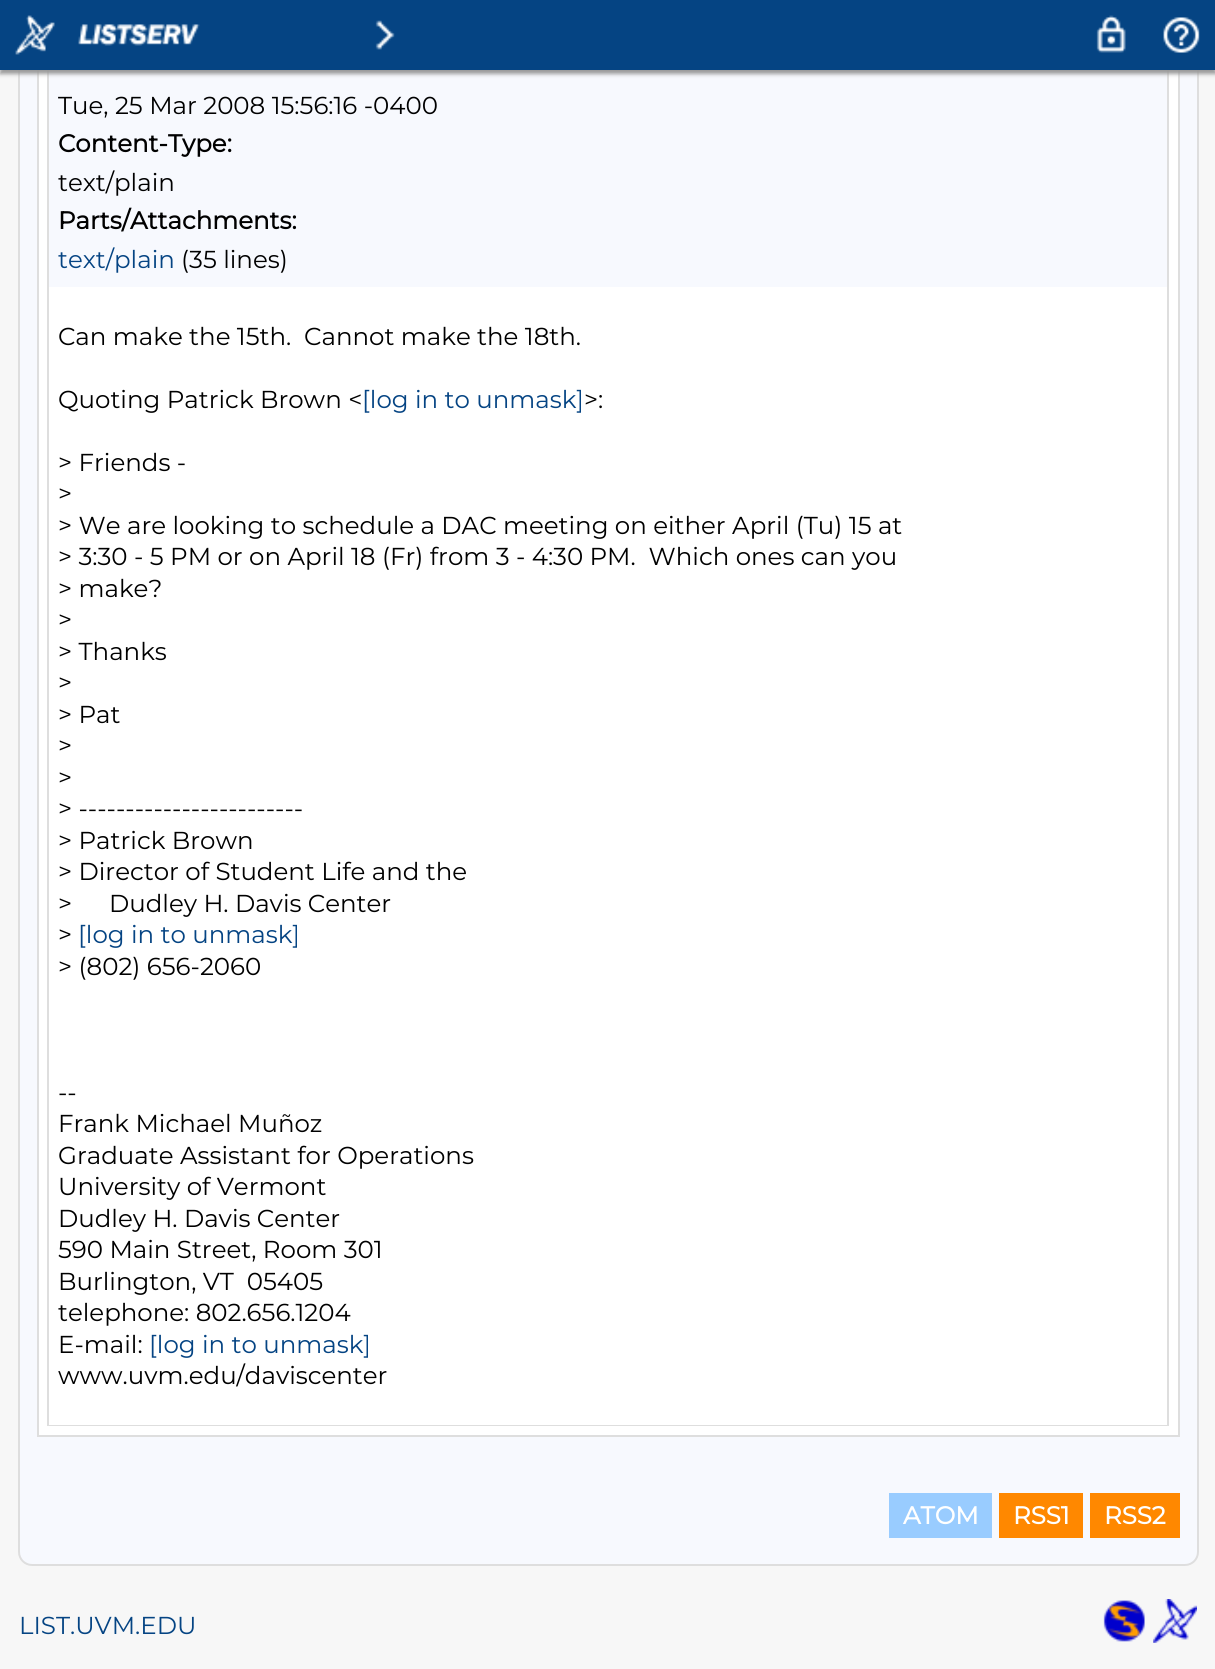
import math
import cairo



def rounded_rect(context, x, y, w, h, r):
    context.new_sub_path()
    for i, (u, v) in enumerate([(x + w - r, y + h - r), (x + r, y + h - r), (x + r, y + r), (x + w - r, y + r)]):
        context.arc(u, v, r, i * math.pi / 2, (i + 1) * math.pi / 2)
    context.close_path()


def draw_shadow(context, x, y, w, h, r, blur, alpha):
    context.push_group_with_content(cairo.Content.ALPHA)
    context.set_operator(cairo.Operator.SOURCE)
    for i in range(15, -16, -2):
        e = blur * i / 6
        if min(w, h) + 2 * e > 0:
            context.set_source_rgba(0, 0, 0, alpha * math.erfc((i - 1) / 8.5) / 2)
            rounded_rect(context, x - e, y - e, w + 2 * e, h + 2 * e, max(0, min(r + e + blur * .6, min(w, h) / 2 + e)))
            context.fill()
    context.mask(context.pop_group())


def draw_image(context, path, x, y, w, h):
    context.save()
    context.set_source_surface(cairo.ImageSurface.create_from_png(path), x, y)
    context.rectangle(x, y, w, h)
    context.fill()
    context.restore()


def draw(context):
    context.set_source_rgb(247 / 255, 247 / 255, 247 / 255)
    context.paint()
    context.set_source_rgb(247 / 255, 249 / 255, 254 / 255)
    rounded_rect(context, 19, -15, 1179, 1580, 13)
    context.fill_preserve()
    context.set_source_rgb(222 / 255, 222 / 255, 222 / 255)
    context.stroke()
    context.rectangle(38, -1, 1141, 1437)
    context.stroke()
    context.set_source_rgb(1, 1, 1)
    context.rectangle(39, 70, 1139, 1365)
    context.fill()
    context.rectangle(48, -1, 1120, 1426)
    context.set_source_rgb(222 / 255, 222 / 255, 222 / 255)
    context.stroke()
    context.set_source_rgb(247 / 255, 249 / 255, 254 / 255)
    context.rectangle(49, 70, 1118, 217)
    context.fill()
    context.set_source_rgb(153 / 255, 153 / 255, 153 / 255)
    draw_shadow(context, 0, 4, 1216, 70, 0, 2, 1)
    context.set_source_rgb(5 / 255, 68 / 255, 131 / 255)
    context.rectangle(0, 0, 1215, 70)
    context.fill()
    draw_image(context, "images/1.png", 15, 15, 40, 40)
    draw_image(context, "images/2.png", 78, 24, 122, 22)
    draw_image(context, "images/3.png", 375, 20, 20, 30)
    draw_image(context, "images/4.png", 1096, 15, 30, 38)
    draw_image(context, "images/5.png", 1163, 17, 37, 36)
    context.set_source_rgb(1, 1, 1)
    context.rectangle(49, 1424, 1118, 1)
    context.fill()
    context.set_source_rgb(153 / 255, 204 / 255, 1)
    context.rectangle(889, 1493, 103, 45)
    context.fill()
    context.set_source_rgb(1, 136 / 255, 0)
    context.rectangle(999, 1493, 84, 45)
    context.fill()
    context.rectangle(1090, 1493, 90, 45)
    context.fill()
    draw_image(context, "images/6.png", 1103, 1600, 42, 42)
    draw_image(context, "images/7.png", 1153, 1599, 44, 44)
    context.select_font_face("Montserrat Thin")
    context.set_font_size(24.5)
    context.set_source_rgb(0, 0, 0)
    context.move_to(58, 114)
    context.show_text("Tue, 25 Mar 2008 15:56:16 -0400")
    context.select_font_face("Montserrat", cairo.FontSlant.NORMAL, cairo.FontWeight.BOLD)
    context.move_to(58, 152)
    context.show_text("Content-Type:")
    context.select_font_face("Montserrat Thin")
    context.move_to(58, 191)
    context.show_text("text/plain")
    context.select_font_face("Montserrat", cairo.FontSlant.NORMAL, cairo.FontWeight.BOLD)
    context.move_to(58, 229)
    context.show_text("Parts/Attachments:")
    context.select_font_face("Montserrat Thin")
    context.set_source_rgb(5 / 255, 68 / 255, 131 / 255)
    context.move_to(58, 268)
    context.show_text("text/plain")
    context.set_source_rgb(0, 0, 0)
    context.move_to(181, 268)
    context.show_text("(35 lines)")
    context.move_to(58, 345)
    context.show_text("Can make the 15th.  Cannot make the 18th.")
    context.move_to(58, 408)
    context.show_text("Quoting Patrick Brown <")
    context.set_source_rgb(5 / 255, 68 / 255, 131 / 255)
    context.move_to(362, 408)
    context.show_text("[log in to unmask]")
    context.set_source_rgb(0, 0, 0)
    context.move_to(584, 408)
    context.show_text(">:")
    context.move_to(58, 471)
    context.show_text("> Friends -")
    context.move_to(58, 502)
    context.show_text(">")
    context.move_to(58, 534)
    context.show_text("> We are looking to schedule a DAC meeting on either April (Tu) 15 at")
    context.move_to(58, 565)
    context.show_text("> 3:30 - 5 PM or on April 18 (Fr) from 3 - 4:30 PM.  Which ones can you")
    context.move_to(58, 597)
    context.show_text("> make?")
    context.move_to(58, 628)
    context.show_text(">")
    context.move_to(58, 660)
    context.show_text("> Thanks")
    context.move_to(58, 691)
    context.show_text(">")
    context.move_to(58, 723)
    context.show_text("> Pat")
    context.move_to(58, 754)
    context.show_text(">")
    context.move_to(58, 786)
    context.show_text(">")
    context.move_to(58, 817)
    context.show_text("> ------------------------")
    context.move_to(58, 849)
    context.show_text("> Patrick Brown")
    context.move_to(58, 880)
    context.show_text("> Director of Student Life and the")
    context.move_to(58, 912)
    context.show_text(">")
    context.move_to(109, 912)
    context.show_text("Dudley H. Davis Center")
    context.move_to(58, 943)
    context.show_text(">")
    context.set_source_rgb(5 / 255, 68 / 255, 131 / 255)
    context.move_to(78, 943)
    context.show_text("[log in to unmask]")
    context.set_source_rgb(0, 0, 0)
    context.move_to(58, 975)
    context.show_text("> (802) 656-2060")
    context.move_to(58, 1101)
    context.show_text("--")
    context.move_to(58, 1132)
    context.show_text("Frank Michael Muñoz")
    context.move_to(58, 1164)
    context.show_text("Graduate Assistant for Operations")
    context.move_to(58, 1195)
    context.show_text("University of Vermont")
    context.move_to(58, 1227)
    context.show_text("Dudley H. Davis Center")
    context.move_to(58, 1258)
    context.show_text("590 Main Street, Room 301")
    context.move_to(58, 1290)
    context.show_text("Burlington, VT  05405")
    context.move_to(58, 1321)
    context.show_text("telephone: 802.656.1204")
    context.move_to(58, 1353)
    context.show_text("E-mail:")
    context.set_source_rgb(5 / 255, 68 / 255, 131 / 255)
    context.move_to(149, 1353)
    context.show_text("[log in to unmask]")
    context.set_source_rgb(0, 0, 0)
    context.move_to(58, 1384)
    context.show_text("www.uvm.edu/daviscenter")
    context.select_font_face("Montserrat", cairo.FontSlant.NORMAL, cairo.FontWeight.BOLD)
    context.set_source_rgb(1, 1, 1)
    context.move_to(903, 1524)
    context.show_text("ATOM")
    context.move_to(1013, 1524)
    context.show_text("RSS1")
    context.move_to(1104, 1524)
    context.show_text("RSS2")
    context.select_font_face("Montserrat Thin")
    context.set_source_rgb(5 / 255, 68 / 255, 131 / 255)
    context.move_to(19, 1634)
    context.show_text("LIST.UVM.EDU")


surface = cairo.ImageSurface(cairo.Format.RGB24, 1215, 1669)
context = cairo.Context(surface)
options = cairo.FontOptions()
options.set_hint_metrics(cairo.HintMetrics.OFF)
options.set_hint_style(cairo.HintStyle.NONE)
context.set_font_options(options)
context.set_miter_limit(4)
draw(context)
surface.write_to_png("out.png")
